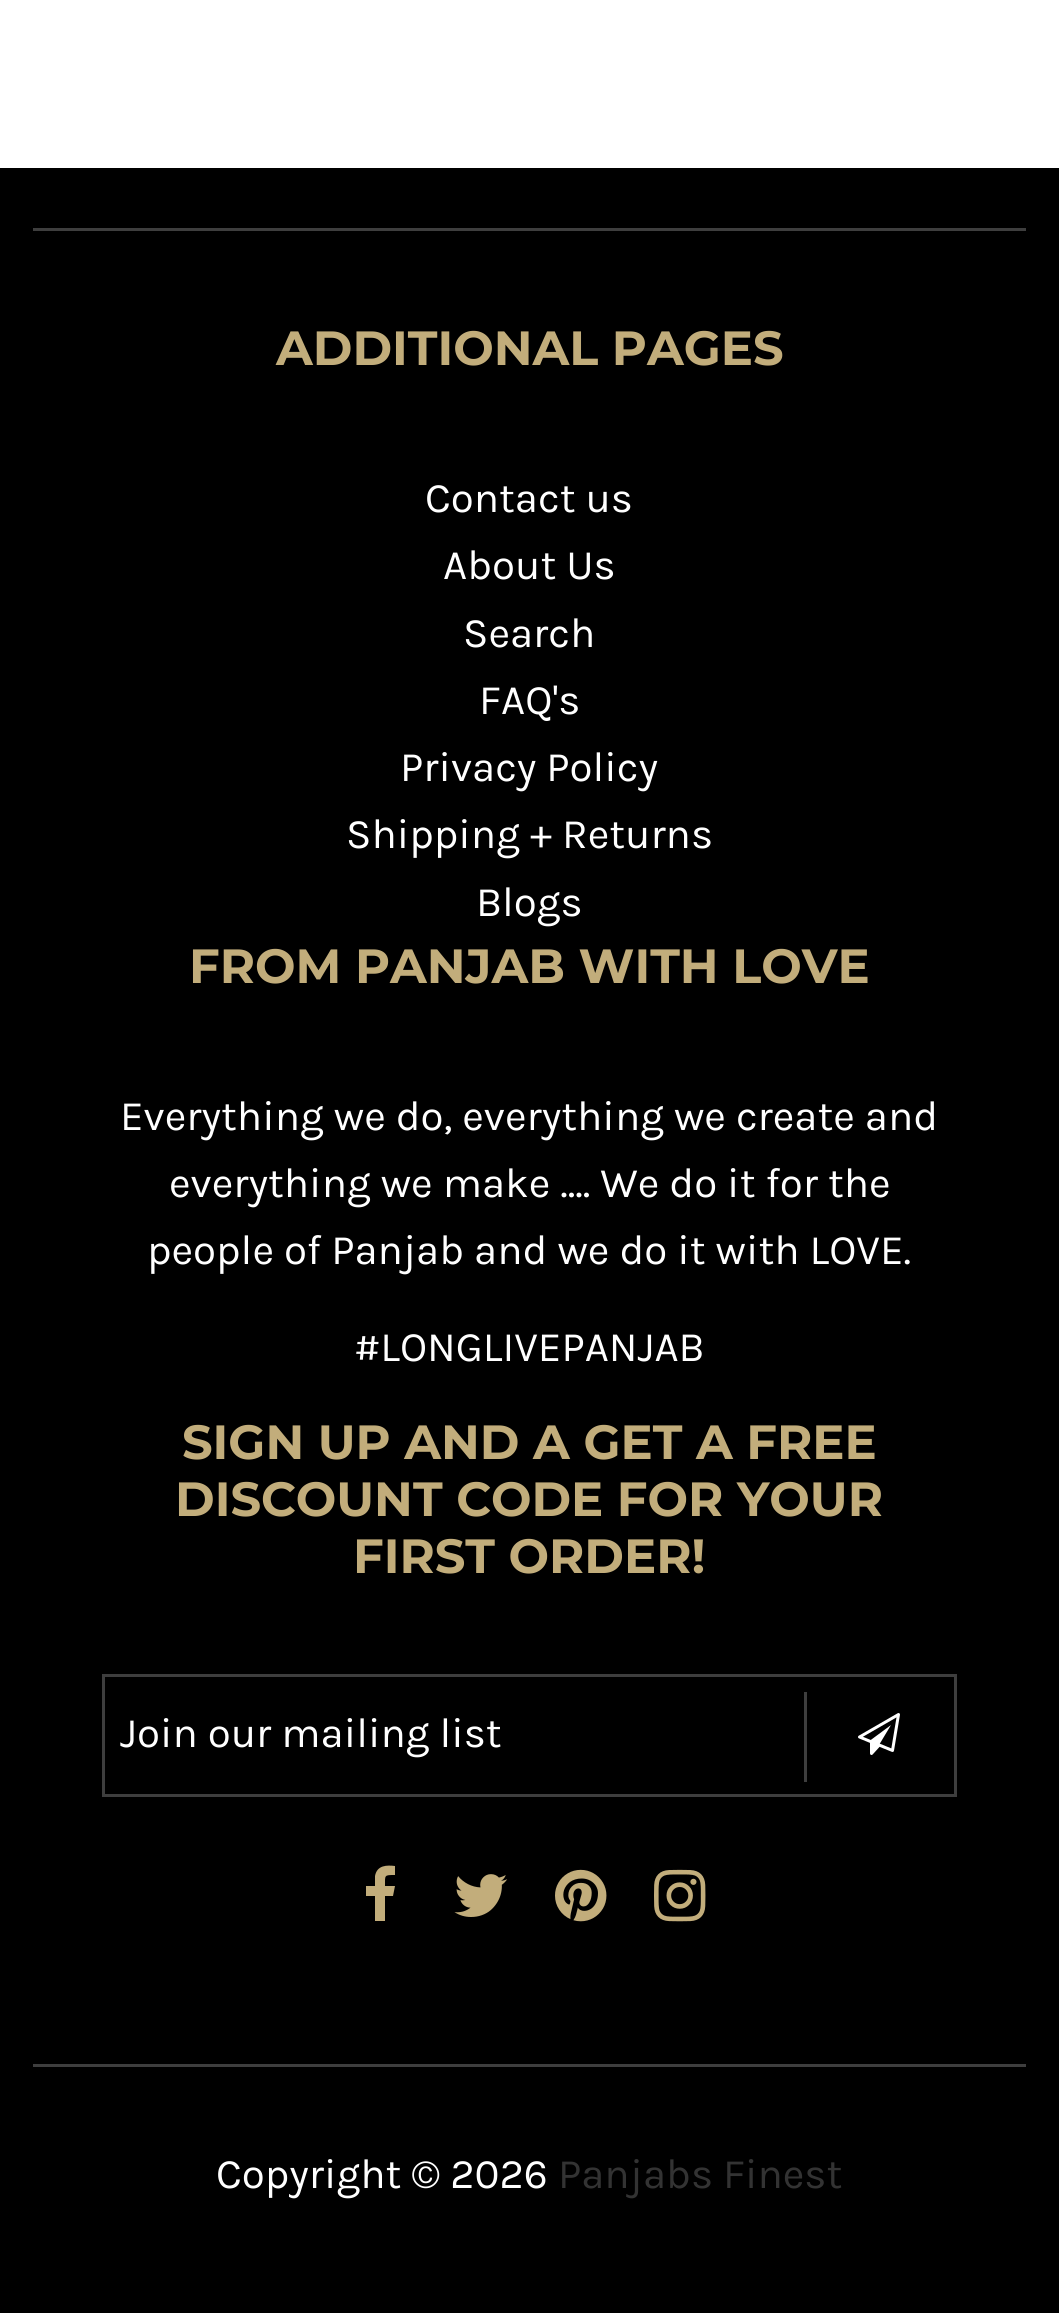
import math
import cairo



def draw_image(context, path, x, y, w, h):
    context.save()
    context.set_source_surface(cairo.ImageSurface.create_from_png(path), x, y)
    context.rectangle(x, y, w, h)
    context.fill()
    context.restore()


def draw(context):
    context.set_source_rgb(1, 1, 1)
    context.paint()
    context.set_source_rgb(0, 0, 0)
    context.rectangle(0, 168, 1059, 2145)
    context.fill()
    context.set_source_rgb(62 / 255, 62 / 255, 62 / 255)
    context.rectangle(33, 228, 993, 3)
    context.fill()
    context.rectangle(33, 2064, 993, 3)
    context.fill()
    context.rectangle(103.5, 1675.5, 852, 120)
    context.set_line_width(3)
    context.stroke()
    context.rectangle(804, 1692, 3, 90)
    context.fill()
    draw_image(context, "images/1.png", 858, 1713, 42, 42)
    context.set_source_rgb(194 / 255, 173 / 255, 123 / 255)
    context.new_path()
    context.move_to(395, 1866)
    context.line_to(395, 1875)
    context.curve_to(384, 1875, 385, 1875, 385, 1886)
    context.line_to(395, 1886)
    context.line_to(393, 1896)
    context.line_to(385, 1896)
    context.line_to(385, 1921)
    context.line_to(375, 1921)
    context.line_to(375, 1896)
    context.line_to(366, 1896)
    context.line_to(366, 1886)
    context.line_to(375, 1886)
    context.line_to(375, 1876)
    context.curve_to(377, 1865, 387, 1865, 395, 1866)
    context.close_path()
    context.fill()
    draw_image(context, "images/2.png", 454, 1874, 54, 43)
    draw_image(context, "images/3.png", 555, 1869, 52, 53)
    draw_image(context, "images/4.png", 654, 1869, 52, 53)
    context.select_font_face("Montserrat", cairo.FontSlant.NORMAL, cairo.FontWeight.BOLD)
    context.set_font_size(48)
    context.move_to(276, 365)
    context.show_text("ADDITIONAL PAGES")
    context.select_font_face("Karla")
    context.set_font_size(42)
    context.set_source_rgb(1, 1, 1)
    context.move_to(425, 512)
    context.show_text("Contact us")
    context.move_to(443, 579)
    context.show_text("About Us")
    context.move_to(463, 647)
    context.show_text("Search")
    context.move_to(479, 714)
    context.show_text("FAQ's")
    context.move_to(400, 781)
    context.show_text("Privacy Policy")
    context.move_to(346, 848)
    context.show_text("Shipping + Returns")
    context.move_to(476, 916)
    context.show_text("Blogs")
    context.select_font_face("Montserrat", cairo.FontSlant.NORMAL, cairo.FontWeight.BOLD)
    context.set_font_size(48)
    context.set_source_rgb(194 / 255, 173 / 255, 123 / 255)
    context.move_to(189, 983)
    context.show_text("FROM PANJAB WITH LOVE")
    context.select_font_face("Karla")
    context.set_font_size(42)
    context.set_source_rgb(1, 1, 1)
    context.move_to(120, 1130)
    context.show_text("Everything we do, everything we create and")
    context.move_to(169, 1197)
    context.show_text("everything we make .... We do it for the")
    context.move_to(147, 1264)
    context.show_text("people of Panjab and we do it with LOVE.")
    context.move_to(354, 1361)
    context.show_text("#LONGLIVEPANJAB")
    context.select_font_face("Montserrat", cairo.FontSlant.NORMAL, cairo.FontWeight.BOLD)
    context.set_font_size(48)
    context.set_source_rgb(194 / 255, 173 / 255, 123 / 255)
    context.move_to(182, 1459)
    context.show_text("SIGN UP AND A GET A FREE")
    context.move_to(175, 1516)
    context.show_text("DISCOUNT CODE FOR YOUR")
    context.move_to(353, 1573)
    context.show_text("FIRST ORDER!")
    context.select_font_face("Karla")
    context.set_font_size(42)
    context.set_source_rgb(1, 1, 1)
    context.move_to(120, 1747)
    context.show_text("Join our mailing list")
    context.move_to(216, 2188)
    context.show_text("Copyright © 2026")
    context.set_source_rgb(51 / 255, 51 / 255, 51 / 255)
    context.move_to(558, 2188)
    context.show_text("Panjabs Finest")


surface = cairo.ImageSurface(cairo.Format.RGB24, 1059, 2313)
context = cairo.Context(surface)
options = cairo.FontOptions()
options.set_hint_metrics(cairo.HintMetrics.OFF)
options.set_hint_style(cairo.HintStyle.NONE)
context.set_font_options(options)
context.set_miter_limit(4)
draw(context)
surface.write_to_png("out.png")
